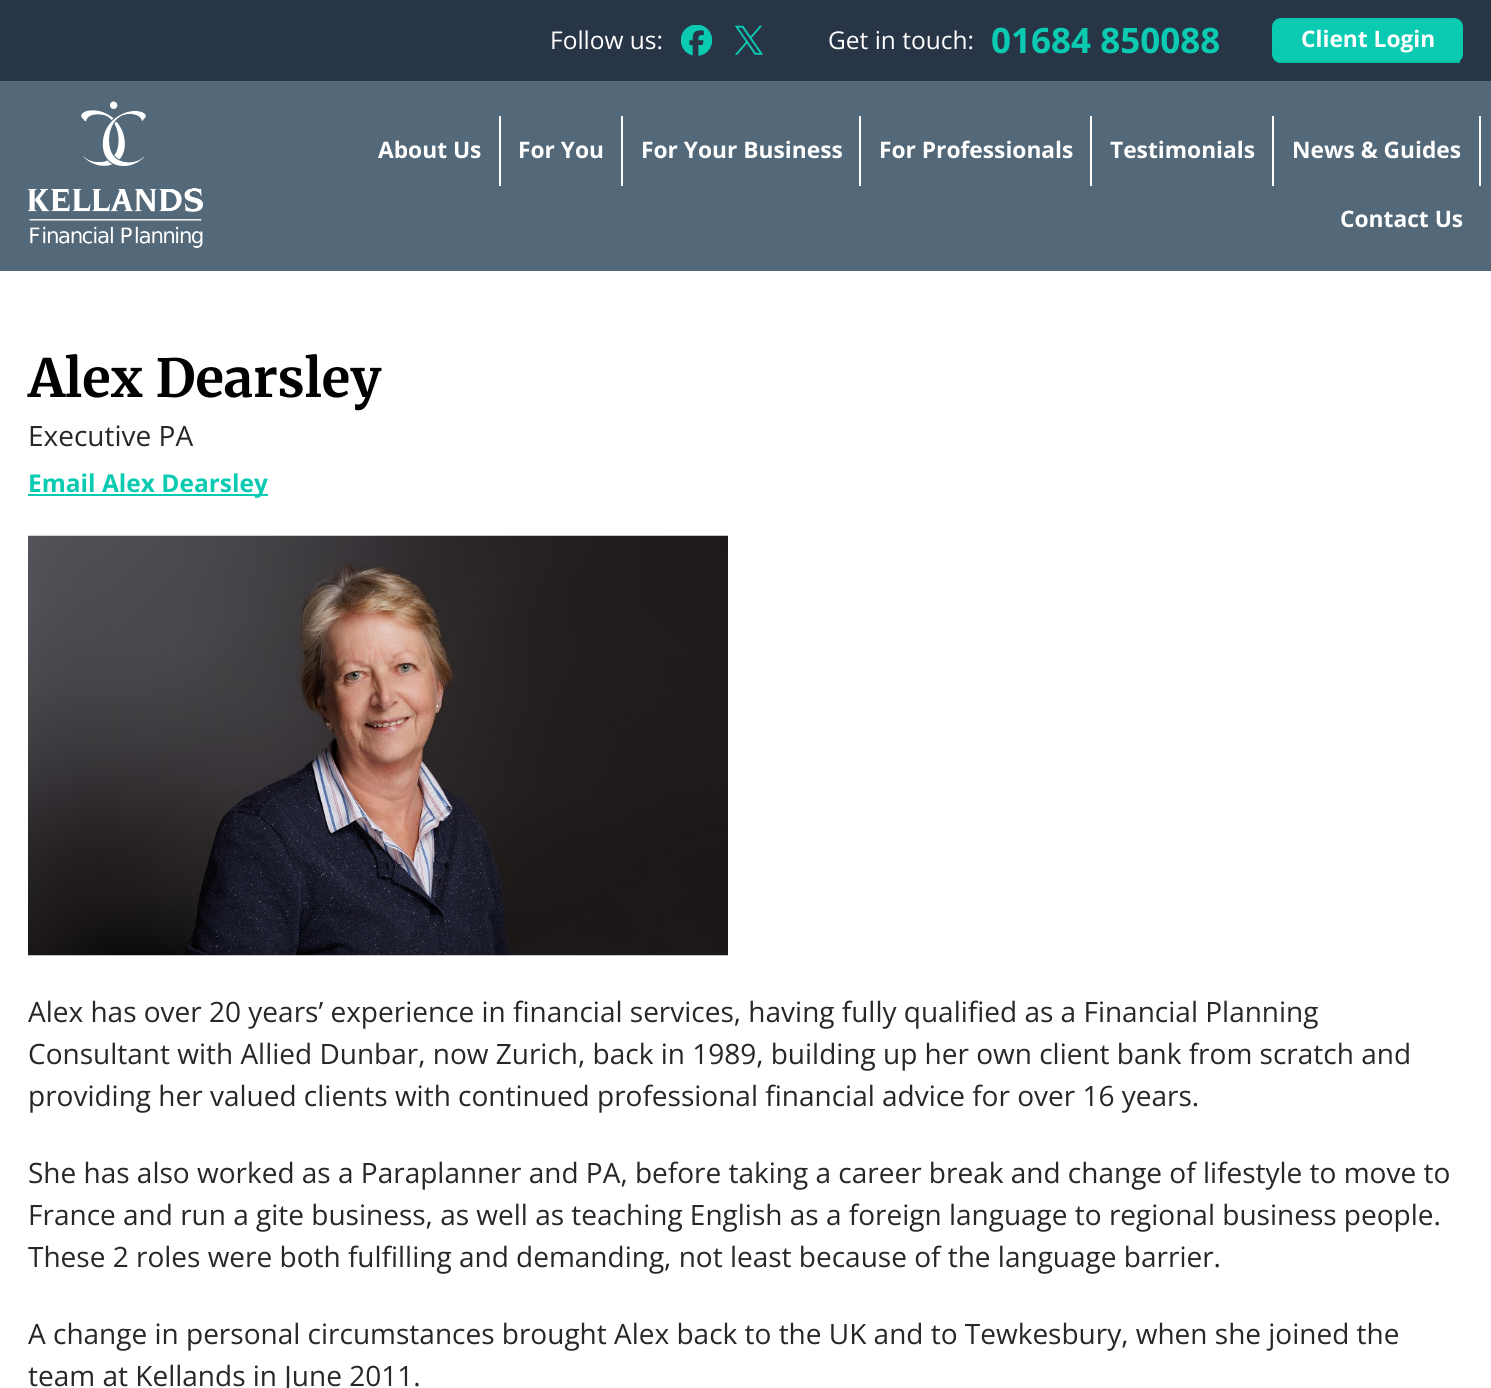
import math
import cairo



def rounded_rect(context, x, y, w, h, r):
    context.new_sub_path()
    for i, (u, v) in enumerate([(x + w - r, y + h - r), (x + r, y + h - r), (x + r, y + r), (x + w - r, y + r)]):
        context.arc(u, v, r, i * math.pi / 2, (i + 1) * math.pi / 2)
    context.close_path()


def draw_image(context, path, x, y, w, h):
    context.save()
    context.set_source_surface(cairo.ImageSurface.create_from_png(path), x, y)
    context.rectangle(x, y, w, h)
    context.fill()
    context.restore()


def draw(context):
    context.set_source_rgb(1, 1, 1)
    context.paint()
    context.set_source_rgb(40 / 255, 53 / 255, 71 / 255)
    context.rectangle(0, 0, 1491, 81)
    context.fill()
    draw_image(context, "images/1.png", 681, 25, 31, 31)
    draw_image(context, "images/2.png", 734, 25, 29, 30)
    context.set_source_rgb(10 / 255, 203 / 255, 177 / 255)
    rounded_rect(context, 1272, 18, 191, 45, 9)
    context.fill()
    context.set_source_rgb(5 / 255, 190 / 255, 165 / 255)
    context.rectangle(1278, 61, 182, 2)
    context.fill()
    context.set_source_rgb(83 / 255, 104 / 255, 120 / 255)
    context.rectangle(0, 81, 1491, 190)
    context.fill()
    draw_image(context, "images/3.png", 28, 101, 175, 147)
    context.set_source_rgb(1, 1, 1)
    context.rectangle(499, 116, 2, 70)
    context.fill()
    context.rectangle(621, 116, 2, 70)
    context.fill()
    context.rectangle(859, 116, 2, 70)
    context.fill()
    context.rectangle(1090, 116, 2, 70)
    context.fill()
    context.rectangle(1272, 116, 2, 70)
    context.fill()
    context.rectangle(1479, 116, 2, 70)
    context.fill()
    context.set_source_rgb(10 / 255, 203 / 255, 177 / 255)
    context.rectangle(28, 494, 240, 2)
    context.fill()
    draw_image(context, "images/4.png", 28, 535, 700, 421)
    context.select_font_face("Open Sans")
    context.set_font_size(24.5)
    context.set_source_rgb(1, 1, 1)
    context.move_to(550, 49)
    context.show_text("Follow us:")
    context.move_to(828, 49)
    context.show_text("Get in touch:")
    context.select_font_face("Open Sans", cairo.FontSlant.NORMAL, cairo.FontWeight.BOLD)
    context.set_font_size(35)
    context.set_source_rgb(10 / 255, 203 / 255, 177 / 255)
    context.move_to(991, 53)
    context.show_text("01684 850088")
    context.set_font_size(22.75)
    context.set_source_rgb(1, 1, 1)
    context.move_to(1301, 47)
    context.show_text("Client Login")
    context.move_to(378, 158)
    context.show_text("About Us")
    context.move_to(518, 158)
    context.show_text("For You")
    context.move_to(641, 158)
    context.show_text("For Your Business")
    context.move_to(879, 158)
    context.show_text("For Professionals")
    context.move_to(1110, 158)
    context.show_text("Testimonials")
    context.move_to(1292, 158)
    context.show_text("News & Guides")
    context.move_to(1340, 227)
    context.show_text("Contact Us")
    context.select_font_face("Merriweather Light")
    context.set_font_size(52.5)
    context.set_source_rgb(0, 0, 0)
    context.move_to(28, 397)
    context.show_text("Alex Dearsley")
    context.select_font_face("Open Sans")
    context.set_font_size(28)
    context.set_source_rgb(39 / 255, 39 / 255, 39 / 255)
    context.move_to(28, 446)
    context.show_text("Executive PA")
    context.select_font_face("Open Sans", cairo.FontSlant.NORMAL, cairo.FontWeight.BOLD)
    context.set_font_size(24.5)
    context.set_source_rgb(10 / 255, 203 / 255, 177 / 255)
    context.move_to(28, 492)
    context.show_text("Email Alex Dearsley")
    context.select_font_face("Open Sans")
    context.set_font_size(28)
    context.set_source_rgb(39 / 255, 39 / 255, 39 / 255)
    context.move_to(28, 1022)
    context.show_text("Alex has over 20 years’ experience in financial services, having fully qualified as a Financial Planning")
    context.move_to(28, 1064)
    context.show_text("Consultant with Allied Dunbar, now Zurich, back in 1989, building up her own client bank from scratch and")
    context.move_to(28, 1106)
    context.show_text("providing her valued clients with continued professional financial advice for over 16 years.")
    context.move_to(28, 1183)
    context.show_text("She has also worked as a Paraplanner and PA, before taking a career break and change of lifestyle to move to")
    context.move_to(28, 1225)
    context.show_text("France and run a gite business, as well as teaching English as a foreign language to regional business people.")
    context.move_to(28, 1267)
    context.show_text("These 2 roles were both fulfilling and demanding, not least because of the language barrier.")
    context.move_to(28, 1344)
    context.show_text("A change in personal circumstances brought Alex back to the UK and to Tewkesbury, when she joined the")
    context.move_to(28, 1386)
    context.show_text("team at Kellands in June 2011.")


surface = cairo.ImageSurface(cairo.Format.RGB24, 1491, 1388)
context = cairo.Context(surface)
options = cairo.FontOptions()
options.set_hint_metrics(cairo.HintMetrics.OFF)
options.set_hint_style(cairo.HintStyle.NONE)
context.set_font_options(options)
context.set_miter_limit(4)
draw(context)
surface.write_to_png("out.png")
